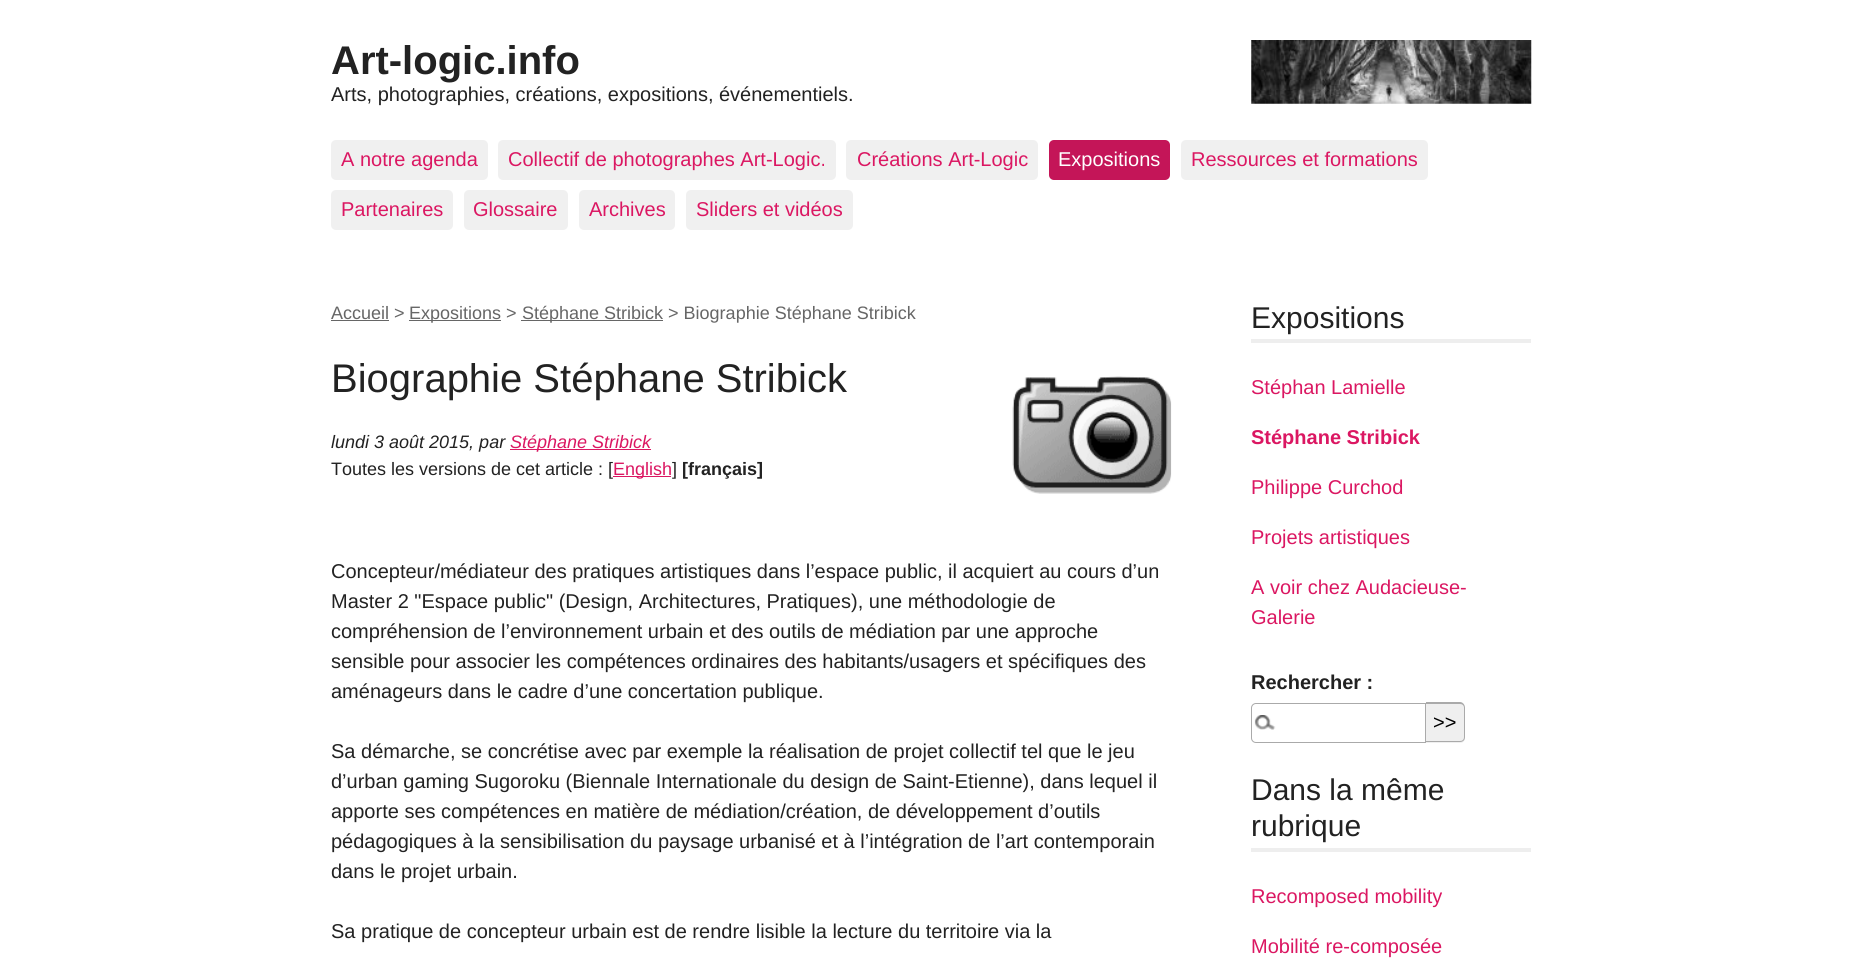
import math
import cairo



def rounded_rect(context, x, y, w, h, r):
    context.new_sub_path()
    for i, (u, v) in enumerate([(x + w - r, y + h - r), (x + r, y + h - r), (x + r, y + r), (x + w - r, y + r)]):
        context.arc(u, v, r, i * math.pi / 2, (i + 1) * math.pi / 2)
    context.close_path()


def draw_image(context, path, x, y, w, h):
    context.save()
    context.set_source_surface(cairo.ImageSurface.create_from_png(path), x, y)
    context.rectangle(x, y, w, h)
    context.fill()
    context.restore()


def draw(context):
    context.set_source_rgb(1, 1, 1)
    context.paint()
    draw_image(context, "images/1.png", 1251, 40, 281, 64)
    context.set_source_rgb(240 / 255, 240 / 255, 240 / 255)
    rounded_rect(context, 331, 140, 157, 40, 5)
    context.fill()
    rounded_rect(context, 498, 140, 338, 40, 5)
    context.fill()
    rounded_rect(context, 846, 140, 192, 40, 5)
    context.fill()
    context.set_source_rgb(196 / 255, 21 / 255, 88 / 255)
    rounded_rect(context, 1049, 140, 121, 40, 5)
    context.fill()
    context.set_source_rgb(240 / 255, 240 / 255, 240 / 255)
    rounded_rect(context, 1181, 140, 247, 40, 5)
    context.fill()
    rounded_rect(context, 331, 190, 122, 40, 5)
    context.fill()
    rounded_rect(context, 464, 190, 104, 40, 5)
    context.fill()
    rounded_rect(context, 579, 190, 96, 40, 5)
    context.fill()
    rounded_rect(context, 686, 190, 167, 40, 5)
    context.fill()
    context.set_source_rgb(102 / 255, 102 / 255, 102 / 255)
    context.rectangle(331, 320, 58, 1)
    context.fill()
    context.rectangle(409, 320, 92, 1)
    context.fill()
    context.rectangle(521, 320, 142, 1)
    context.fill()
    draw_image(context, "images/2.png", 1012, 376, 160, 118)
    context.set_source_rgb(219 / 255, 23 / 255, 98 / 255)
    context.rectangle(510, 449, 141, 1)
    context.fill()
    context.rectangle(613, 476, 58, 1)
    context.fill()
    context.set_source_rgb(238 / 255, 238 / 255, 238 / 255)
    context.rectangle(1251, 339, 280, 4)
    context.fill()
    draw_image(context, "images/3.png", 1254, 715, 22, 15)
    context.new_path()
    context.move_to(1256, 703.5)
    context.line_to(1425.5, 703.5)
    context.line_to(1425.5, 742.5)
    context.line_to(1256, 742.5)
    context.curve_to(1253.5, 742.5, 1251.5, 740.5, 1251.5, 738)
    context.line_to(1251.5, 708)
    context.curve_to(1251.5, 705.5, 1253.5, 703.5, 1256, 703.5)
    context.close_path()
    context.set_source_rgb(170 / 255, 170 / 255, 170 / 255)
    context.set_line_width(1)
    context.stroke()
    context.set_source_rgb(239 / 255, 239 / 255, 239 / 255)
    context.new_path()
    context.move_to(1426, 703)
    context.line_to(1460, 703)
    context.curve_to(1463, 703, 1465, 705, 1465, 708)
    context.line_to(1465, 738)
    context.curve_to(1465, 741, 1463, 743, 1460, 743)
    context.line_to(1426, 743)
    context.close_path()
    context.fill()
    context.set_source_rgb(170 / 255, 170 / 255, 170 / 255)
    context.set_fill_rule(cairo.FillRule.EVEN_ODD)
    context.new_path()
    context.move_to(1426, 702)
    context.line_to(1460, 702)
    context.curve_to(1463, 702, 1465, 705, 1465, 708)
    context.line_to(1465, 737)
    context.curve_to(1465, 740, 1463, 742, 1460, 742)
    context.line_to(1426, 742)
    context.close_path()
    context.move_to(1426, 704)
    context.line_to(1460, 704)
    context.curve_to(1462, 704, 1464, 705, 1464, 708)
    context.line_to(1464, 737)
    context.curve_to(1464, 740, 1462, 741, 1460, 741)
    context.line_to(1426, 741)
    context.close_path()
    context.fill()
    context.set_source_rgb(238 / 255, 238 / 255, 238 / 255)
    context.rectangle(1251, 848, 280, 4)
    context.fill()
    context.select_font_face("Liberation Sans", cairo.FontSlant.NORMAL, cairo.FontWeight.BOLD)
    context.set_font_size(40)
    context.set_source_rgb(34 / 255, 34 / 255, 34 / 255)
    context.move_to(331, 74)
    context.show_text("Art-logic.info")
    context.select_font_face("Liberation Sans")
    context.set_font_size(20)
    context.move_to(331, 101)
    context.show_text("Arts, photographies, créations, expositions, événementiels.")
    context.set_source_rgb(219 / 255, 23 / 255, 98 / 255)
    context.move_to(341, 166)
    context.show_text("A notre agenda")
    context.move_to(508, 166)
    context.show_text("Collectif de photographes Art-Logic.")
    context.move_to(857, 166)
    context.show_text("Créations Art-Logic")
    context.set_source_rgb(1, 1, 1)
    context.move_to(1058, 166)
    context.show_text("Expositions")
    context.set_source_rgb(219 / 255, 23 / 255, 98 / 255)
    context.move_to(1191, 166)
    context.show_text("Ressources et formations")
    context.move_to(341, 216)
    context.show_text("Partenaires")
    context.move_to(473, 216)
    context.show_text("Glossaire")
    context.move_to(589, 216)
    context.show_text("Archives")
    context.move_to(696, 216)
    context.show_text("Sliders et vidéos")
    context.set_font_size(18)
    context.set_source_rgb(102 / 255, 102 / 255, 102 / 255)
    context.move_to(331, 319)
    context.show_text("Accueil >")
    context.move_to(409, 319)
    context.show_text("Expositions >")
    context.move_to(522, 319)
    context.show_text("Stéphane Stribick > Biographie Stéphane Stribick")
    context.set_font_size(40)
    context.set_source_rgb(34 / 255, 34 / 255, 34 / 255)
    context.move_to(331, 392)
    context.show_text("Biographie Stéphane Stribick")
    context.select_font_face("Liberation Sans", cairo.FontSlant.ITALIC)
    context.set_font_size(18)
    context.move_to(331, 448)
    context.show_text("lundi 3 août 2015, par")
    context.set_source_rgb(219 / 255, 23 / 255, 98 / 255)
    context.move_to(510, 448)
    context.show_text("Stéphane Stribick")
    context.select_font_face("Liberation Sans")
    context.set_source_rgb(34 / 255, 34 / 255, 34 / 255)
    context.move_to(331, 475)
    context.show_text("Toutes les versions de cet article : [")
    context.set_source_rgb(219 / 255, 23 / 255, 98 / 255)
    context.move_to(613, 475)
    context.show_text("English")
    context.set_source_rgb(34 / 255, 34 / 255, 34 / 255)
    context.move_to(672, 475)
    context.show_text("]")
    context.select_font_face("Liberation Sans", cairo.FontSlant.NORMAL, cairo.FontWeight.BOLD)
    context.move_to(682, 475)
    context.show_text("[français]")
    context.select_font_face("Liberation Sans")
    context.set_font_size(20)
    context.move_to(331, 578)
    context.show_text("Concepteur/médiateur des pratiques artistiques dans l’espace public, il acquiert au cours d’un")
    context.move_to(331, 608)
    context.show_text("Master 2 \"Espace public\" (Design, Architectures, Pratiques), une méthodologie de")
    context.move_to(331, 638)
    context.show_text("compréhension de l’environnement urbain et des outils de médiation par une approche")
    context.move_to(331, 668)
    context.show_text("sensible pour associer les compétences ordinaires des habitants/usagers et spécifiques des")
    context.move_to(331, 698)
    context.show_text("aménageurs dans le cadre d’une concertation publique.")
    context.move_to(331, 758)
    context.show_text("Sa démarche, se concrétise avec par exemple la réalisation de projet collectif tel que le jeu")
    context.move_to(331, 788)
    context.show_text("d’urban gaming Sugoroku (Biennale Internationale du design de Saint-Etienne), dans lequel il")
    context.move_to(331, 818)
    context.show_text("apporte ses compétences en matière de médiation/création, de développement d’outils")
    context.move_to(331, 848)
    context.show_text("pédagogiques à la sensibilisation du paysage urbanisé et à l’intégration de l’art contemporain")
    context.move_to(331, 878)
    context.show_text("dans le projet urbain.")
    context.move_to(331, 938)
    context.show_text("Sa pratique de concepteur urbain est de rendre lisible la lecture du territoire via la")
    context.set_font_size(30)
    context.move_to(1251, 328)
    context.show_text("Expositions")
    context.set_font_size(20)
    context.set_source_rgb(219 / 255, 23 / 255, 98 / 255)
    context.move_to(1251, 394)
    context.show_text("Stéphan Lamielle")
    context.select_font_face("Liberation Sans", cairo.FontSlant.NORMAL, cairo.FontWeight.BOLD)
    context.move_to(1251, 444)
    context.show_text("Stéphane Stribick")
    context.select_font_face("Liberation Sans")
    context.move_to(1251, 494)
    context.show_text("Philippe Curchod")
    context.move_to(1251, 544)
    context.show_text("Projets artistiques")
    context.move_to(1251, 594)
    context.show_text("A voir chez Audacieuse-")
    context.move_to(1251, 624)
    context.show_text("Galerie")
    context.select_font_face("Liberation Sans", cairo.FontSlant.NORMAL, cairo.FontWeight.BOLD)
    context.set_source_rgb(34 / 255, 34 / 255, 34 / 255)
    context.move_to(1251, 689)
    context.show_text("Rechercher :")
    context.select_font_face("Liberation Sans")
    context.set_source_rgb(0, 0, 0)
    context.move_to(1433, 729)
    context.show_text(">>")
    context.set_font_size(30)
    context.set_source_rgb(34 / 255, 34 / 255, 34 / 255)
    context.move_to(1251, 800)
    context.show_text("Dans la même")
    context.move_to(1251, 836)
    context.show_text("rubrique")
    context.set_font_size(20)
    context.set_source_rgb(219 / 255, 23 / 255, 98 / 255)
    context.move_to(1251, 903)
    context.show_text("Recomposed mobility")
    context.move_to(1251, 953)
    context.show_text("Mobilité re-composée")


surface = cairo.ImageSurface(cairo.Format.RGB24, 1861, 960)
context = cairo.Context(surface)
options = cairo.FontOptions()
options.set_hint_metrics(cairo.HintMetrics.OFF)
options.set_hint_style(cairo.HintStyle.NONE)
context.set_font_options(options)
context.set_miter_limit(4)
draw(context)
surface.write_to_png("out.png")
